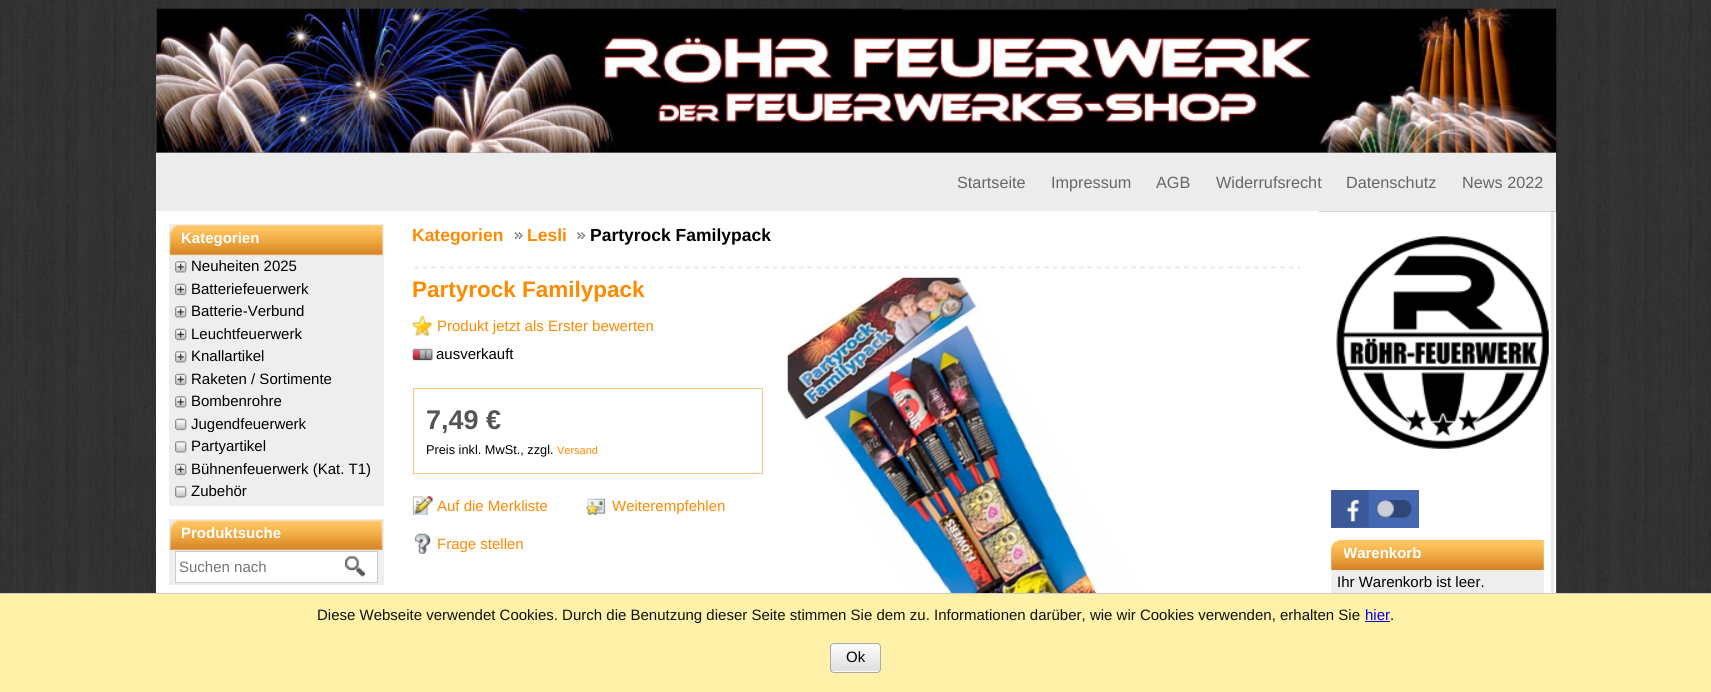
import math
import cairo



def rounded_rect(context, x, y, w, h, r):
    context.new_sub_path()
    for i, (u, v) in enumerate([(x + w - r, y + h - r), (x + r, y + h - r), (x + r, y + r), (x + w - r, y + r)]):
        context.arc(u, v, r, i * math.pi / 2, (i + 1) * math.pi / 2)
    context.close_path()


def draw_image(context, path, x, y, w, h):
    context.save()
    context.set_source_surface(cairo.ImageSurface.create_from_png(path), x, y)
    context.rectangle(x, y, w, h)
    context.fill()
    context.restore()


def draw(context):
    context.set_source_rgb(1, 1, 1)
    context.paint()
    draw_image(context, "images/1.png", 0, 0, 1711, 593)
    context.set_source_rgb(164 / 255, 160 / 255, 160 / 255)
    context.rectangle(156, 9, 1400, 144)
    context.fill()
    draw_image(context, "images/2.png", 156, 8, 1401, 145)
    context.set_source_rgb(237 / 255, 236 / 255, 236 / 255)
    context.rectangle(156, 153, 1400, 58)
    context.fill()
    context.set_source_rgb(1, 1, 1)
    context.rectangle(156, 211, 1163, 382)
    context.fill()
    context.set_source_rgb(238 / 255, 238 / 255, 238 / 255)
    context.rectangle(169, 224, 215, 282)
    context.fill()
    draw_image(context, "images/3.png", 169, 224, 214, 32)
    draw_image(context, "images/4.png", 169, 224, 214, 30)
    draw_image(context, "images/5.png", 175, 261, 12, 12)
    draw_image(context, "images/6.png", 175, 283, 12, 13)
    draw_image(context, "images/5.png", 175, 306, 12, 12)
    draw_image(context, "images/6.png", 175, 328, 12, 13)
    draw_image(context, "images/5.png", 175, 351, 12, 12)
    draw_image(context, "images/6.png", 175, 373, 12, 13)
    draw_image(context, "images/5.png", 175, 396, 12, 12)
    draw_image(context, "images/7.png", 175, 418, 12, 13)
    draw_image(context, "images/8.png", 175, 441, 12, 12)
    draw_image(context, "images/6.png", 175, 463, 12, 13)
    draw_image(context, "images/8.png", 175, 486, 12, 12)
    context.rectangle(169, 519, 215, 66)
    context.fill()
    draw_image(context, "images/3.png", 169, 519, 214, 32)
    context.set_source_rgb(1, 1, 1)
    context.rectangle(175.5, 551.5, 202, 31)
    context.fill_preserve()
    context.set_source_rgb(204 / 255, 204 / 255, 204 / 255)
    context.set_line_width(1)
    context.stroke()
    draw_image(context, "images/9.png", 345, 556, 20, 21)
    draw_image(context, "images/10.png", 515, 232, 8, 7)
    draw_image(context, "images/11.png", 577, 232, 9, 7)
    draw_image(context, "images/12.png", 413, 266, 887, 3)
    draw_image(context, "images/13.png", 412, 316, 21, 21)
    draw_image(context, "images/14.png", 412, 348, 21, 13)
    context.rectangle(413.5, 388.5, 349, 85)
    context.set_source_rgb(1, 196 / 255, 127 / 255)
    context.stroke()
    draw_image(context, "images/15.png", 412, 496, 21, 19)
    draw_image(context, "images/16.png", 586, 498, 20, 18)
    draw_image(context, "images/17.png", 414, 533, 17, 21)
    draw_image(context, "images/18.png", 787, 277, 359, 316)
    draw_image(context, "images/19.png", 1319, 211, 238, 382)
    draw_image(context, "images/20.png", 1319, 211, 238, 382)
    draw_image(context, "images/21.png", 1336, 236, 213, 213)
    context.set_source_rgb(70 / 255, 104 / 255, 179 / 255)
    context.rectangle(1331, 490, 88, 38)
    context.fill()
    draw_image(context, "images/22.png", 1331, 490, 38, 38)
    draw_image(context, "images/23.png", 1375, 500, 37, 18)
    context.set_source_rgb(238 / 255, 238 / 255, 238 / 255)
    context.rectangle(1331, 540, 213, 53)
    context.fill()
    draw_image(context, "images/24.png", 1331, 540, 213, 30)
    context.set_source_rgb(1, 241 / 255, 168 / 255)
    context.rectangle(0, 594, 1711, 98)
    context.fill()
    context.set_source_rgb(204 / 255, 204 / 255, 204 / 255)
    context.rectangle(0, 593, 1711, 1)
    context.fill()
    context.set_source_rgb(0, 0, 238 / 255)
    context.rectangle(1365, 621, 25, 1)
    context.fill()
    context.save()
    rounded_rect(context, 830, 643, 51, 30, 4)
    context.clip()
    gradient = cairo.LinearGradient(856, 644, 856, 671)
    gradient.add_color_stop_rgba(0.1, 249 / 255, 249 / 255, 249 / 255, 1)
    gradient.add_color_stop_rgba(0.9, 226 / 255, 226 / 255, 226 / 255, 1)
    context.set_source(gradient)
    context.rectangle(830, 644, 51, 27)
    context.fill()
    gradient = cairo.LinearGradient(856, 671, 856, 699)
    gradient.add_color_stop_rgba(0.1, 249 / 255, 249 / 255, 249 / 255, 1)
    gradient.add_color_stop_rgba(0.9, 226 / 255, 226 / 255, 226 / 255, 1)
    context.set_source(gradient)
    context.rectangle(830, 671, 51, 2)
    context.fill()
    context.restore()
    rounded_rect(context, 830.5, 643.5, 50, 29, 3.5)
    context.set_source_rgb(170 / 255, 170 / 255, 170 / 255)
    context.stroke()
    context.select_font_face("Liberation Sans")
    context.set_font_size(16.25)
    context.set_source_rgb(102 / 255, 102 / 255, 102 / 255)
    context.move_to(957, 188)
    context.show_text("Startseite")
    context.move_to(1051, 188)
    context.show_text("Impressum")
    context.move_to(1156, 188)
    context.show_text("AGB")
    context.move_to(1216, 188)
    context.show_text("Widerrufsrecht")
    context.move_to(1346, 188)
    context.show_text("Datenschutz")
    context.move_to(1462, 188)
    context.show_text("News 2022")
    context.select_font_face("Liberation Sans", cairo.FontSlant.NORMAL, cairo.FontWeight.BOLD)
    context.set_font_size(15)
    context.set_source_rgb(1, 1, 1)
    context.move_to(181, 243)
    context.show_text("Kategorien")
    context.select_font_face("Liberation Sans")
    context.set_source_rgb(0, 0, 0)
    context.move_to(191, 271)
    context.show_text("Neuheiten 2025")
    context.move_to(191, 294)
    context.show_text("Batteriefeuerwerk")
    context.move_to(191, 316)
    context.show_text("Batterie-Verbund")
    context.move_to(191, 339)
    context.show_text("Leuchtfeuerwerk")
    context.move_to(191, 361)
    context.show_text("Knallartikel")
    context.move_to(191, 384)
    context.show_text("Raketen / Sortimente")
    context.move_to(191, 406)
    context.show_text("Bombenrohre")
    context.move_to(191, 429)
    context.show_text("Jugendfeuerwerk")
    context.move_to(191, 451)
    context.show_text("Partyartikel")
    context.move_to(191, 474)
    context.show_text("Bühnenfeuerwerk (Kat. T1)")
    context.move_to(191, 496)
    context.show_text("Zubehör")
    context.select_font_face("Liberation Sans", cairo.FontSlant.NORMAL, cairo.FontWeight.BOLD)
    context.set_source_rgb(1, 1, 1)
    context.move_to(181, 538)
    context.show_text("Produktsuche")
    context.select_font_face("Liberation Sans")
    context.set_source_rgb(117 / 255, 117 / 255, 117 / 255)
    context.move_to(179, 572)
    context.show_text("Suchen nach")
    context.select_font_face("Liberation Sans", cairo.FontSlant.NORMAL, cairo.FontWeight.BOLD)
    context.set_font_size(17.5)
    context.set_source_rgb(1, 138 / 255, 0)
    context.move_to(412, 241)
    context.show_text("Kategorien")
    context.move_to(527, 241)
    context.show_text("Lesli")
    context.set_source_rgb(0, 0, 0)
    context.move_to(590, 241)
    context.show_text("Partyrock Familypack")
    context.set_font_size(22.5)
    context.set_source_rgb(1, 138 / 255, 0)
    context.move_to(412, 297)
    context.show_text("Partyrock Familypack")
    context.select_font_face("Liberation Sans")
    context.set_font_size(15)
    context.move_to(437, 331)
    context.show_text("Produkt jetzt als Erster bewerten")
    context.set_source_rgb(0, 0, 0)
    context.move_to(436, 359)
    context.show_text("ausverkauft")
    context.select_font_face("Liberation Sans", cairo.FontSlant.NORMAL, cairo.FontWeight.BOLD)
    context.set_font_size(27)
    context.set_source_rgb(85 / 255, 85 / 255, 85 / 255)
    context.move_to(426, 429)
    context.show_text("7,49 €")
    context.select_font_face("Liberation Sans")
    context.set_font_size(12.75)
    context.set_source_rgb(0, 0, 0)
    context.move_to(426, 454)
    context.show_text("Preis inkl. MwSt., zzgl.")
    context.set_font_size(11)
    context.set_source_rgb(1, 138 / 255, 0)
    context.move_to(557, 454)
    context.show_text("Versand")
    context.set_font_size(15)
    context.move_to(437, 511)
    context.show_text("Auf die Merkliste")
    context.move_to(612, 511)
    context.show_text("Weiterempfehlen")
    context.move_to(437, 549)
    context.show_text("Frage stellen")
    context.save()
    context.rectangle(1344, 540, 200, 30)
    context.clip()
    context.select_font_face("Liberation Sans", cairo.FontSlant.NORMAL, cairo.FontWeight.BOLD)
    context.set_source_rgb(1, 1, 1)
    context.move_to(1343, 558)
    context.show_text("Warenkorb")
    context.restore()
    context.set_source_rgb(0, 0, 0)
    context.move_to(1337, 587)
    context.show_text("Ihr Warenkorb ist leer.")
    context.set_source_rgb(17 / 255, 17 / 255, 17 / 255)
    context.move_to(317, 620)
    context.show_text("Diese Webseite verwendet Cookies. Durch die Benutzung dieser Seite stimmen Sie dem zu. Informationen darüber, wie wir Cookies verwenden, erhalten Sie")
    context.set_source_rgb(0, 0, 238 / 255)
    context.move_to(1365, 620)
    context.show_text("hier")
    context.set_source_rgb(17 / 255, 17 / 255, 17 / 255)
    context.move_to(1390, 620)
    context.show_text(".")
    context.set_source_rgb(0, 0, 0)
    context.move_to(846, 662)
    context.show_text("Ok")


surface = cairo.ImageSurface(cairo.Format.RGB24, 1711, 692)
context = cairo.Context(surface)
options = cairo.FontOptions()
options.set_hint_metrics(cairo.HintMetrics.OFF)
options.set_hint_style(cairo.HintStyle.NONE)
context.set_font_options(options)
context.set_miter_limit(4)
draw(context)
surface.write_to_png("out.png")
